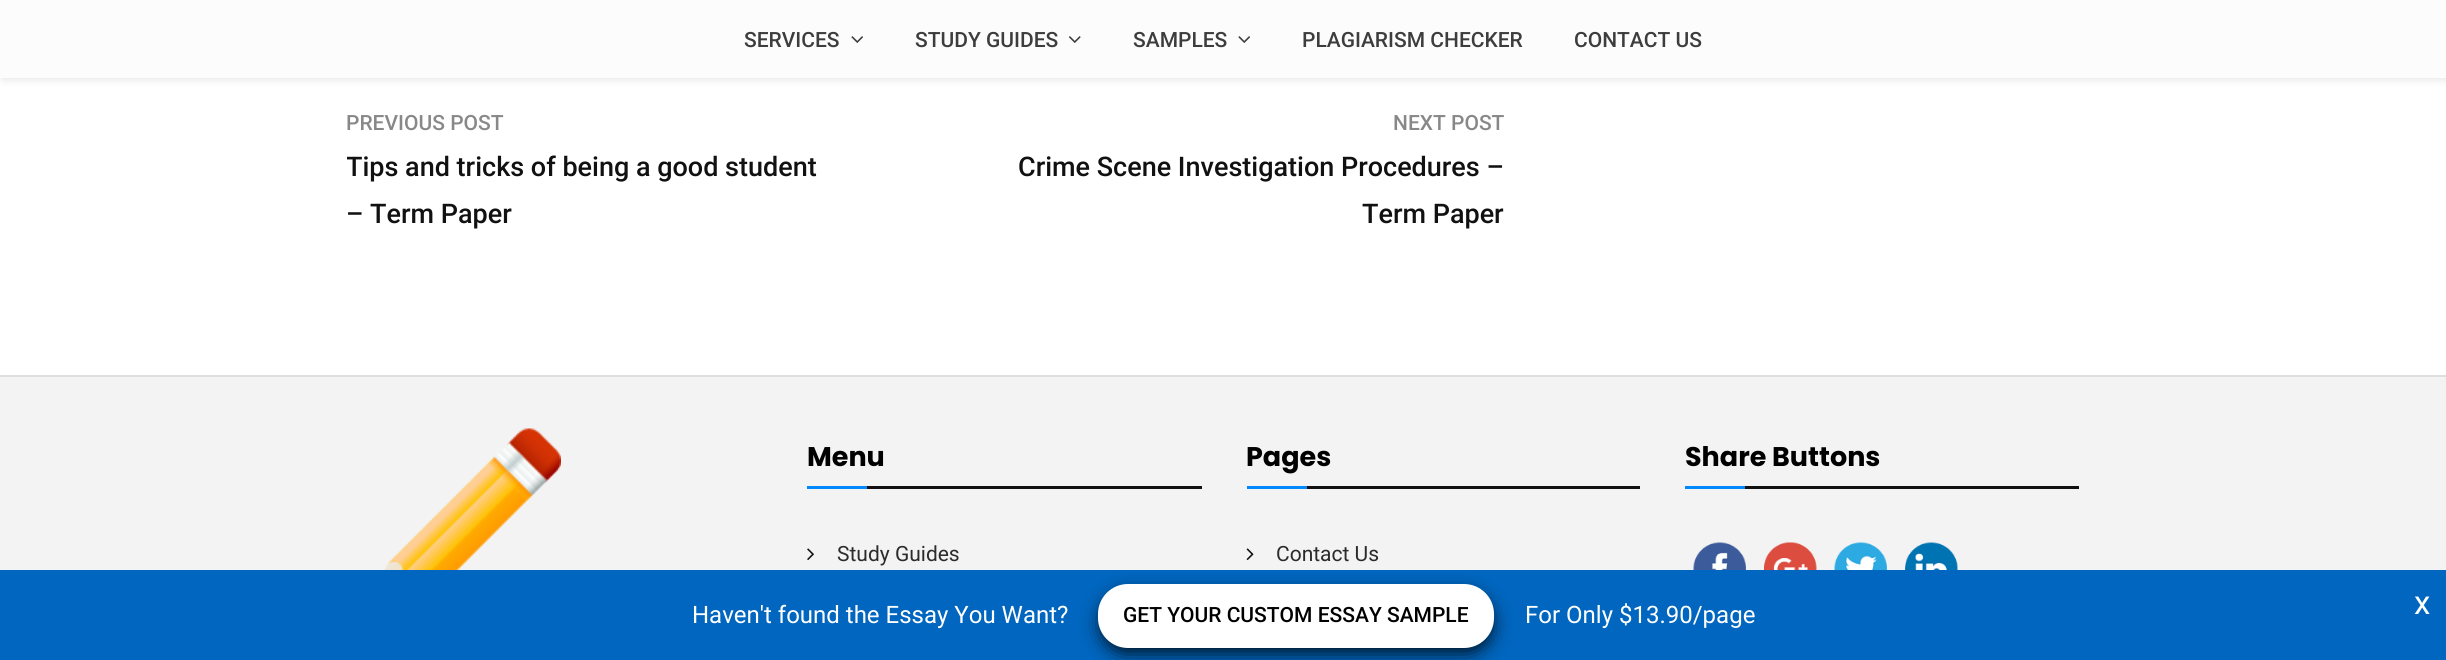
import math
import cairo



def rounded_rect(context, x, y, w, h, r):
    context.new_sub_path()
    for i, (u, v) in enumerate([(x + w - r, y + h - r), (x + r, y + h - r), (x + r, y + r), (x + w - r, y + r)]):
        context.arc(u, v, r, i * math.pi / 2, (i + 1) * math.pi / 2)
    context.close_path()


def draw_shadow(context, x, y, w, h, r, blur, alpha):
    context.push_group_with_content(cairo.Content.ALPHA)
    context.set_operator(cairo.Operator.SOURCE)
    for i in range(15, -16, -2):
        e = blur * i / 6
        if min(w, h) + 2 * e > 0:
            context.set_source_rgba(0, 0, 0, alpha * math.erfc((i - 1) / 8.5) / 2)
            rounded_rect(context, x - e, y - e, w + 2 * e, h + 2 * e, max(0, min(r + e + blur * .6, min(w, h) / 2 + e)))
            context.fill()
    context.mask(context.pop_group())


def draw_image(context, path, x, y, w, h):
    context.save()
    context.set_source_surface(cairo.ImageSurface.create_from_png(path), x, y)
    context.rectangle(x, y, w, h)
    context.fill()
    context.restore()


def draw(context):
    context.set_source_rgb(1, 1, 1)
    context.paint()
    context.set_source_rgb(0, 0, 0)
    draw_shadow(context, 3, 2, 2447, 78, 0, 4, 0.1)
    context.set_source_rgb(252 / 255, 252 / 255, 252 / 255)
    context.rectangle(0, 0, 2446, 78)
    context.fill()
    draw_image(context, "images/1.png", 851, 36, 12, 7)
    draw_image(context, "images/2.png", 1069, 36, 12, 7)
    draw_image(context, "images/1.png", 1238, 36, 12, 7)
    context.set_source_rgb(243 / 255, 243 / 255, 243 / 255)
    context.rectangle(0, 377, 2446, 193)
    context.fill()
    context.set_source_rgb(222 / 255, 222 / 255, 222 / 255)
    context.rectangle(0, 375, 2446, 2)
    context.fill()
    draw_image(context, "images/3.png", 383, 428, 178, 142)
    context.set_source_rgb(17 / 255, 17 / 255, 17 / 255)
    context.rectangle(867, 486, 335, 3)
    context.fill()
    context.set_source_rgb(0, 136 / 255, 1)
    context.rectangle(807, 486, 60, 3)
    context.fill()
    draw_image(context, "images/4.png", 807, 548, 7, 12)
    context.set_source_rgb(17 / 255, 17 / 255, 17 / 255)
    context.rectangle(1307, 486, 333, 3)
    context.fill()
    context.set_source_rgb(0, 136 / 255, 1)
    context.rectangle(1247, 486, 60, 3)
    context.fill()
    draw_image(context, "images/5.png", 1246, 548, 8, 12)
    context.set_source_rgb(17 / 255, 17 / 255, 17 / 255)
    context.rectangle(1745, 486, 334, 3)
    context.fill()
    context.set_source_rgb(0, 136 / 255, 1)
    context.rectangle(1685, 486, 60, 3)
    context.fill()
    draw_image(context, "images/6.png", 1693, 542, 53, 28)
    draw_image(context, "images/7.png", 1764, 542, 53, 28)
    draw_image(context, "images/8.png", 1834, 542, 53, 28)
    draw_image(context, "images/9.png", 1905, 542, 53, 28)
    context.set_source_rgb(0, 102 / 255, 191 / 255)
    context.rectangle(0, 570, 2446, 90)
    context.fill()
    context.set_source_rgb(0, 0, 0)
    draw_shadow(context, 1103, 596, 387, 55, 26, 10, 1)
    context.set_source_rgb(1, 1, 1)
    rounded_rect(context, 1098, 584, 396, 64, 30)
    context.fill()
    context.select_font_face("Roboto Medium")
    context.set_font_size(21)
    context.set_source_rgb(61 / 255, 61 / 255, 61 / 255)
    context.move_to(744, 47)
    context.show_text("SERVICES")
    context.move_to(915, 47)
    context.show_text("STUDY GUIDES")
    context.move_to(1133, 47)
    context.show_text("SAMPLES")
    context.move_to(1302, 47)
    context.show_text("PLAGIARISM CHECKER")
    context.move_to(1574, 47)
    context.show_text("CONTACT US")
    context.set_source_rgb(136 / 255, 136 / 255, 136 / 255)
    context.move_to(346, 130)
    context.show_text("PREVIOUS POST")
    context.save()
    context.rectangle(347, 74, 1158, 211)
    context.clip()
    context.set_font_size(27)
    context.set_source_rgb(17 / 255, 17 / 255, 17 / 255)
    context.move_to(346, 176)
    context.show_text("Tips and tricks of being a good student")
    context.restore()
    context.set_font_size(27)
    context.set_source_rgb(17 / 255, 17 / 255, 17 / 255)
    context.move_to(346, 223)
    context.show_text("– Term Paper")
    context.set_font_size(21)
    context.set_source_rgb(136 / 255, 136 / 255, 136 / 255)
    context.move_to(1393, 130)
    context.show_text("NEXT POST")
    context.set_font_size(27)
    context.set_source_rgb(17 / 255, 17 / 255, 17 / 255)
    context.move_to(1018, 176)
    context.show_text("Crime Scene Investigation Procedures –")
    context.move_to(1362, 223)
    context.show_text("Term Paper")
    context.select_font_face("Poppins", cairo.FontSlant.NORMAL, cairo.FontWeight.BOLD)
    context.set_source_rgb(0, 0, 0)
    context.move_to(807, 466)
    context.show_text("Menu")
    context.select_font_face("Roboto")
    context.set_font_size(21)
    context.set_source_rgb(43 / 255, 43 / 255, 43 / 255)
    context.move_to(837, 561)
    context.show_text("Study Guides")
    context.select_font_face("Poppins", cairo.FontSlant.NORMAL, cairo.FontWeight.BOLD)
    context.set_font_size(27)
    context.set_source_rgb(0, 0, 0)
    context.move_to(1246, 466)
    context.show_text("Pages")
    context.select_font_face("Roboto")
    context.set_font_size(21)
    context.set_source_rgb(43 / 255, 43 / 255, 43 / 255)
    context.move_to(1276, 561)
    context.show_text("Contact Us")
    context.select_font_face("Poppins", cairo.FontSlant.NORMAL, cairo.FontWeight.BOLD)
    context.set_font_size(27)
    context.set_source_rgb(0, 0, 0)
    context.move_to(1685, 466)
    context.show_text("Share Buttons")
    context.select_font_face("Roboto")
    context.set_font_size(24)
    context.set_source_rgb(1, 1, 1)
    context.move_to(692, 623)
    context.show_text("Haven't found the Essay You Want?")
    context.select_font_face("Roboto Medium")
    context.set_font_size(21)
    context.set_source_rgb(0, 0, 0)
    context.move_to(1123, 622)
    context.show_text("GET YOUR CUSTOM ESSAY SAMPLE")
    context.select_font_face("Roboto")
    context.set_font_size(24)
    context.set_source_rgb(1, 1, 1)
    context.move_to(1525, 623)
    context.show_text("For Only $13.90/page")
    context.set_font_size(33)
    context.move_to(2414, 614)
    context.show_text("x")


surface = cairo.ImageSurface(cairo.Format.RGB24, 2446, 660)
context = cairo.Context(surface)
options = cairo.FontOptions()
options.set_hint_metrics(cairo.HintMetrics.OFF)
options.set_hint_style(cairo.HintStyle.NONE)
context.set_font_options(options)
context.set_miter_limit(4)
draw(context)
surface.write_to_png("out.png")
